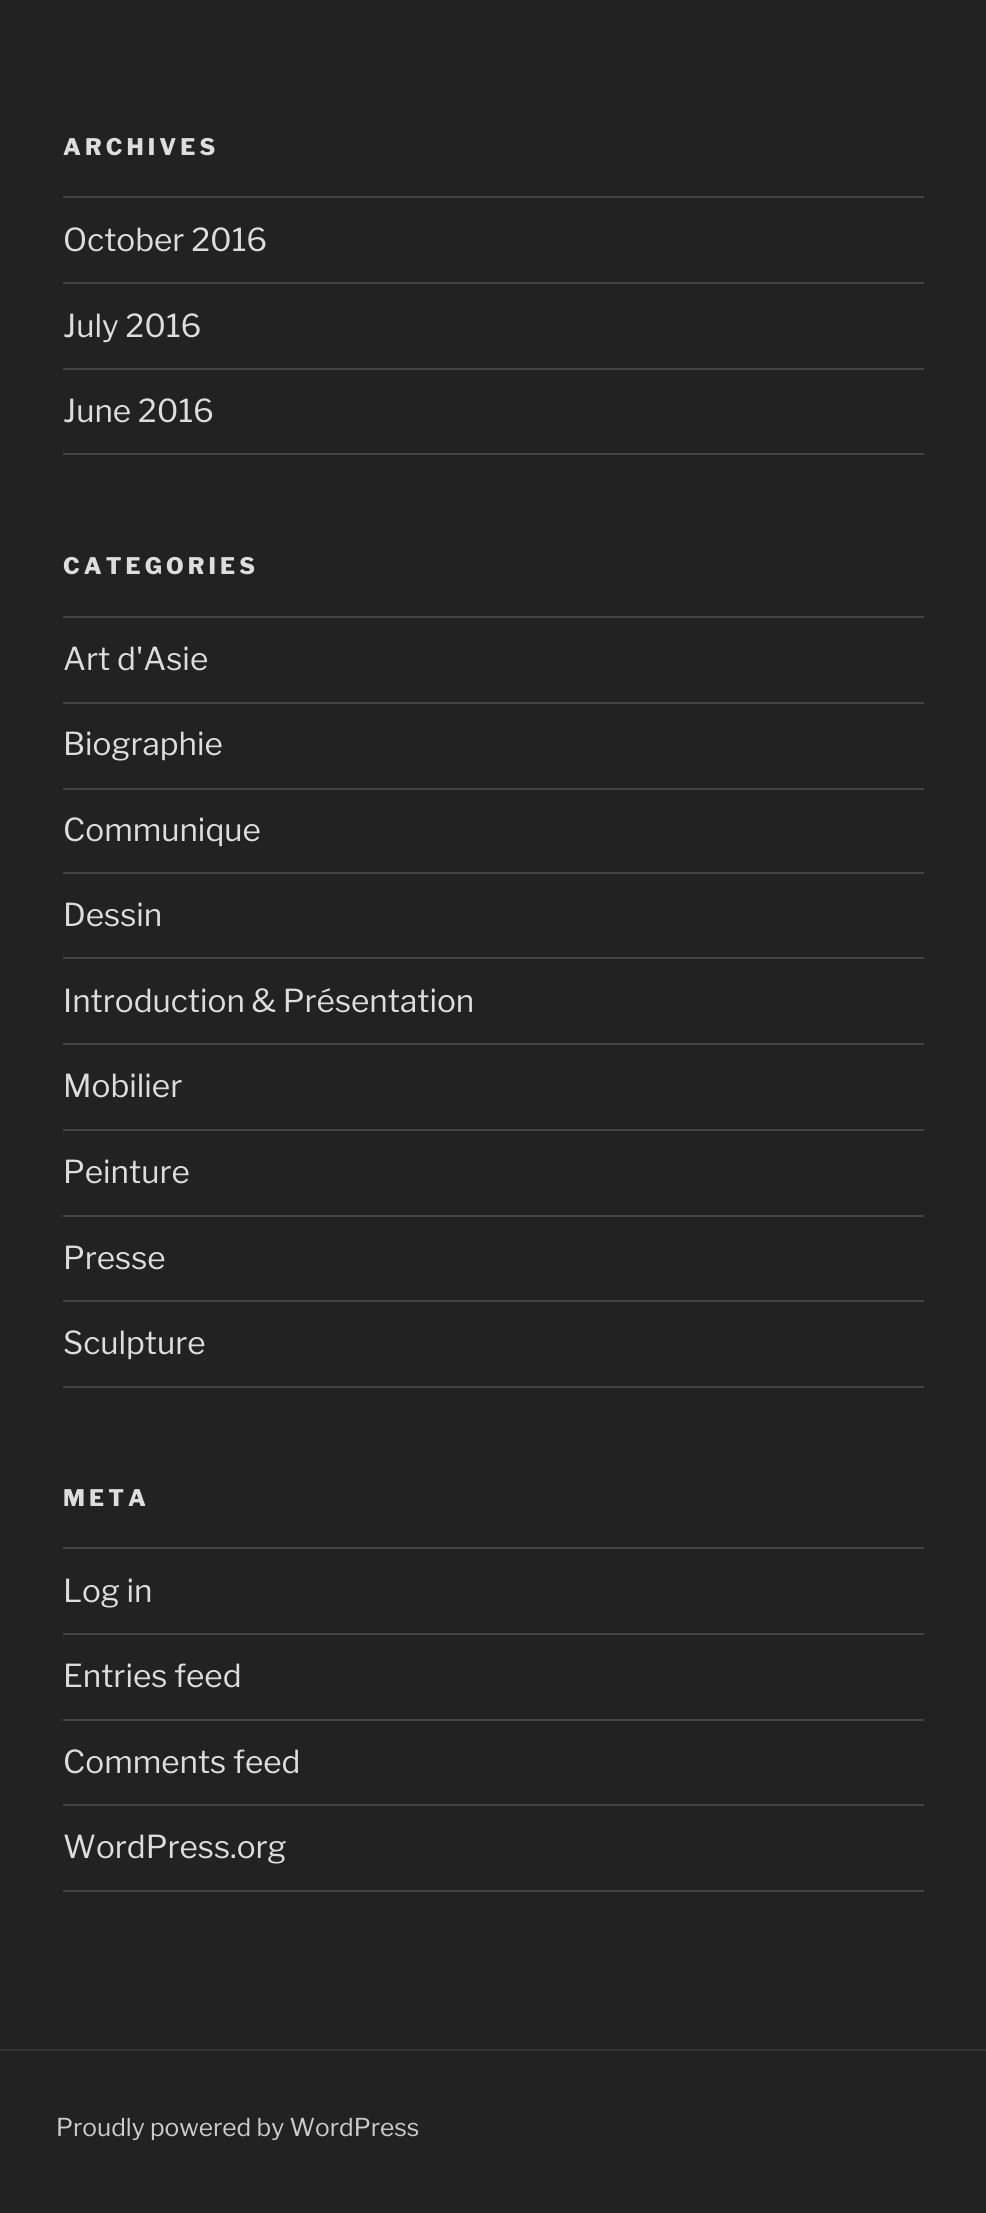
import math
import cairo



def draw_spaced(context, x, y, s, letter, word):
    context.move_to(x, y)
    for ch in s:
        context.show_text(ch)
        context.rel_move_to(letter + word * (ch == ' '), 0)


def draw(context):
    context.set_source_rgb(34 / 255, 34 / 255, 34 / 255)
    context.paint()
    context.set_source_rgb(68 / 255, 68 / 255, 68 / 255)
    context.rectangle(63, 196, 861, 2)
    context.fill()
    context.rectangle(63, 282, 861, 2)
    context.fill()
    context.rectangle(63, 368, 861, 2)
    context.fill()
    context.rectangle(63, 453, 861, 2)
    context.fill()
    context.rectangle(63, 616, 861, 2)
    context.fill()
    context.rectangle(63, 702, 861, 2)
    context.fill()
    context.rectangle(63, 788, 861, 2)
    context.fill()
    context.rectangle(63, 872, 861, 2)
    context.fill()
    context.rectangle(63, 957, 861, 2)
    context.fill()
    context.rectangle(63, 1043, 861, 2)
    context.fill()
    context.rectangle(63, 1129, 861, 2)
    context.fill()
    context.rectangle(63, 1215, 861, 2)
    context.fill()
    context.rectangle(63, 1300, 861, 2)
    context.fill()
    context.rectangle(63, 1386, 861, 2)
    context.fill()
    context.rectangle(63, 1547, 861, 2)
    context.fill()
    context.rectangle(63, 1633, 861, 2)
    context.fill()
    context.rectangle(63, 1719, 861, 2)
    context.fill()
    context.rectangle(63, 1804, 861, 2)
    context.fill()
    context.rectangle(63, 1890, 861, 2)
    context.fill()
    context.set_source_rgb(51 / 255, 51 / 255, 51 / 255)
    context.rectangle(0, 2049, 986, 2)
    context.fill()
    context.select_font_face("Libre Franklin ExtraBold")
    context.set_font_size(22.75)
    context.set_source_rgb(221 / 255, 221 / 255, 221 / 255)
    draw_spaced(context, 63, 155, "ARCHIVES", 4.1, 0)
    context.select_font_face("Libre Franklin")
    context.set_font_size(31.5)
    context.move_to(63, 251)
    context.show_text("October 2016")
    context.move_to(63, 337)
    context.show_text("July 2016")
    context.move_to(63, 422)
    context.show_text("June 2016")
    context.select_font_face("Libre Franklin ExtraBold")
    context.set_font_size(22.75)
    draw_spaced(context, 63, 574, "CATEGORIES", 4.1, 0)
    context.select_font_face("Libre Franklin")
    context.set_font_size(31.5)
    context.move_to(63, 670)
    context.show_text("Art d'Asie")
    context.move_to(63, 755)
    context.show_text("Biographie")
    context.move_to(63, 841)
    context.show_text("Communique")
    context.move_to(63, 926)
    context.show_text("Dessin")
    context.move_to(63, 1012)
    context.show_text("Introduction & Présentation")
    context.move_to(63, 1097)
    context.show_text("Mobilier")
    context.move_to(63, 1183)
    context.show_text("Peinture")
    context.move_to(63, 1269)
    context.show_text("Presse")
    context.move_to(63, 1354)
    context.show_text("Sculpture")
    context.select_font_face("Libre Franklin ExtraBold")
    context.set_font_size(22.75)
    draw_spaced(context, 63, 1506, "META", 4.1, 0)
    context.select_font_face("Libre Franklin")
    context.set_font_size(31.5)
    context.move_to(63, 1602)
    context.show_text("Log in")
    context.move_to(63, 1687)
    context.show_text("Entries feed")
    context.move_to(63, 1773)
    context.show_text("Comments feed")
    context.move_to(63, 1858)
    context.show_text("WordPress.org")
    context.set_font_size(24.5)
    context.set_source_rgb(204 / 255, 204 / 255, 204 / 255)
    context.move_to(56, 2136)
    context.show_text("Proudly powered by WordPress")


surface = cairo.ImageSurface(cairo.Format.RGB24, 986, 2213)
context = cairo.Context(surface)
options = cairo.FontOptions()
options.set_hint_metrics(cairo.HintMetrics.OFF)
options.set_hint_style(cairo.HintStyle.NONE)
context.set_font_options(options)
context.set_miter_limit(4)
draw(context)
surface.write_to_png("out.png")
